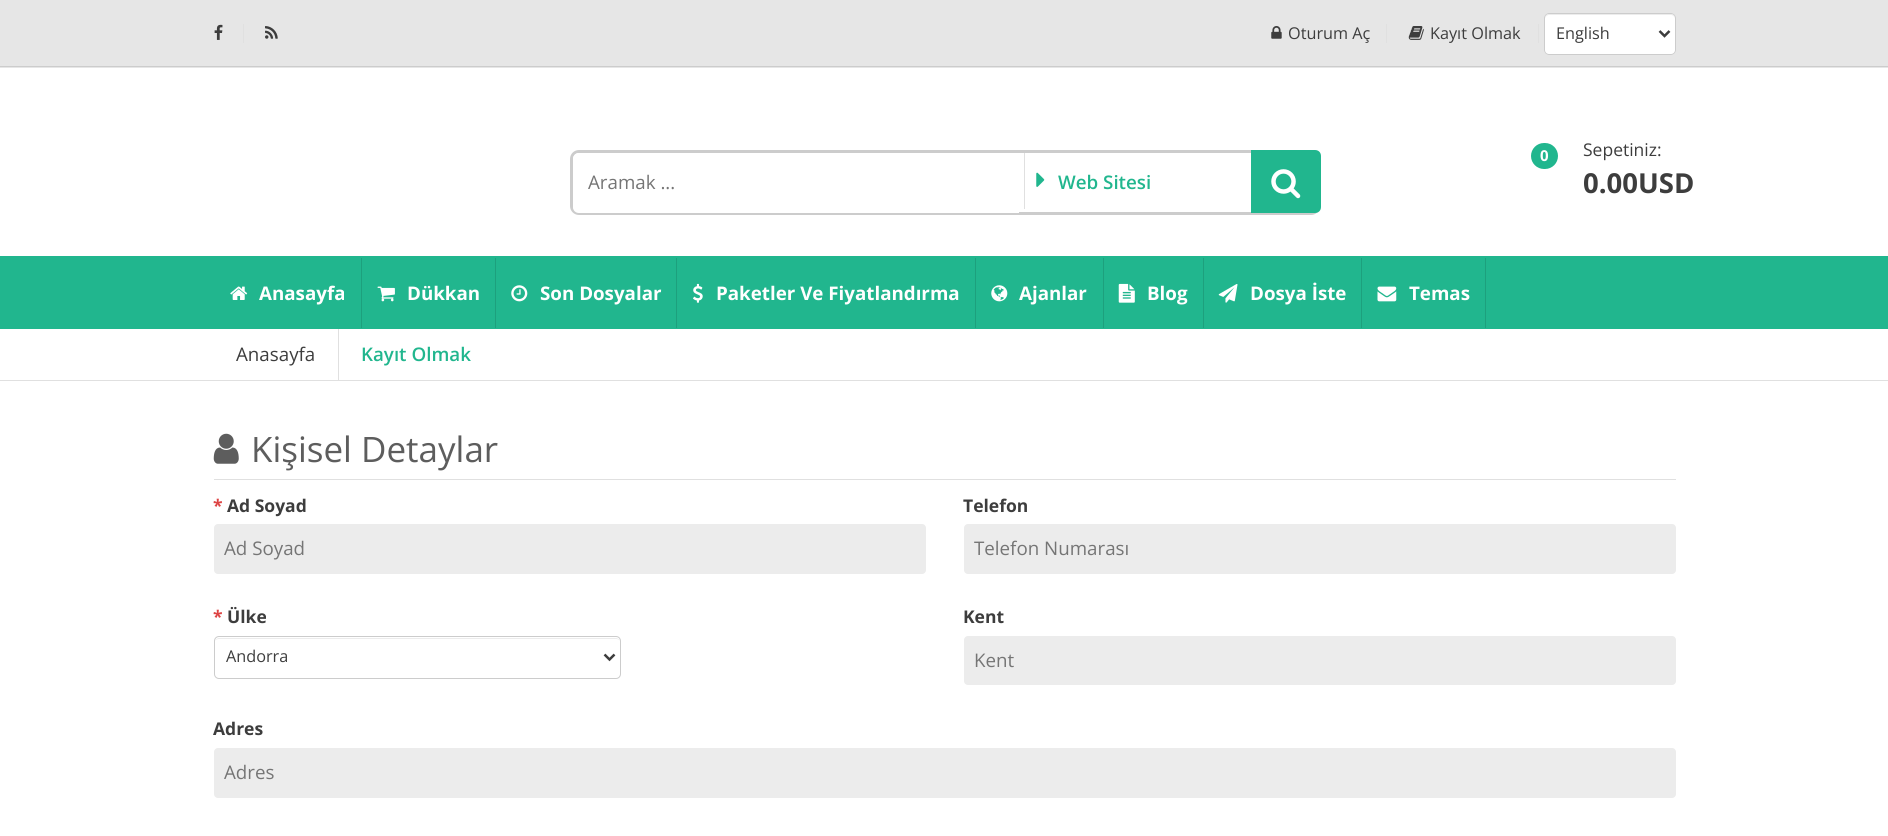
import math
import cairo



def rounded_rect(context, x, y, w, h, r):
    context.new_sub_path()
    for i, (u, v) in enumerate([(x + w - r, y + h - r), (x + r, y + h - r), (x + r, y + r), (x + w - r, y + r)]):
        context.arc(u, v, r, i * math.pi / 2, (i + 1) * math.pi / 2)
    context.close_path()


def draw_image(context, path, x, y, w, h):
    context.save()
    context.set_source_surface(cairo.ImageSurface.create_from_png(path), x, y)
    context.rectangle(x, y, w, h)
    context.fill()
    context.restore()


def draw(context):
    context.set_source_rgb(1, 1, 1)
    context.paint()
    context.set_source_rgb(230 / 255, 230 / 255, 230 / 255)
    context.rectangle(0, 0, 1888, 68)
    context.fill()
    context.set_source_rgb(204 / 255, 204 / 255, 204 / 255)
    context.rectangle(0, 66, 1888, 1)
    context.fill()
    context.set_source_rgb(224 / 255, 224 / 255, 224 / 255)
    context.rectangle(243, 24, 1, 19)
    context.fill()
    draw_image(context, "images/1.png", 214, 24, 9, 16)
    draw_image(context, "images/2.png", 265, 26, 13, 13)
    context.rectangle(1386, 24, 1, 19)
    context.fill()
    draw_image(context, "images/3.png", 1271, 26, 11, 13)
    context.rectangle(1538, 24, 1, 19)
    context.fill()
    draw_image(context, "images/4.png", 1408, 26, 16, 14)
    context.set_source_rgb(1, 1, 1)
    rounded_rect(context, 1544, 13, 132, 42, 5)
    context.fill()
    context.set_source_rgb(236 / 255, 236 / 255, 236 / 255)
    context.new_path()
    context.move_to(1549, 15)
    context.line_to(1671, 15)
    context.curve_to(1673, 15, 1675, 17, 1675, 19)
    context.line_to(1675, 18)
    context.curve_to(1675, 16, 1673, 14, 1671, 14)
    context.line_to(1549, 14)
    context.curve_to(1547, 14, 1545, 16, 1545, 18)
    context.line_to(1545, 19)
    context.curve_to(1545, 17, 1547, 15, 1549, 15)
    context.close_path()
    context.fill()
    rounded_rect(context, 1544.5, 13.5, 131, 41, 4.5)
    context.set_source_rgb(204 / 255, 204 / 255, 204 / 255)
    context.set_line_width(1)
    context.stroke()
    context.new_path()
    context.move_to(1659.5, 31)
    context.line_to(1664.5, 36)
    context.line_to(1669.5, 31)
    context.set_source_rgb(61 / 255, 61 / 255, 61 / 255)
    context.set_line_width(2.5)
    context.stroke()
    rounded_rect(context, 571.5, 151.5, 747, 62, 7.5)
    context.set_source_rgb(204 / 255, 204 / 255, 204 / 255)
    context.set_line_width(3)
    context.stroke()
    context.set_source_rgb(1, 1, 1)
    context.new_path()
    context.move_to(579, 153)
    context.line_to(1019, 153)
    context.line_to(1019, 213)
    context.line_to(579, 213)
    context.curve_to(575.5, 213, 573, 210.5, 573, 207)
    context.line_to(573, 159)
    context.curve_to(573, 155.5, 575.5, 153, 579, 153)
    context.close_path()
    context.fill()
    context.set_source_rgb(224 / 255, 224 / 255, 224 / 255)
    context.rectangle(1024, 153, 1, 56)
    context.fill()
    draw_image(context, "images/5.png", 1036, 172, 9, 15)
    context.set_source_rgb(33 / 255, 182 / 255, 142 / 255)
    context.new_path()
    context.move_to(1251, 150)
    context.line_to(1315, 150)
    context.curve_to(1318.5, 150, 1321, 152.5, 1321, 156)
    context.line_to(1321, 207)
    context.curve_to(1321, 210.5, 1318.5, 213, 1315, 213)
    context.line_to(1251, 213)
    context.close_path()
    context.fill()
    draw_image(context, "images/6.png", 1271, 169, 30, 30)
    rounded_rect(context, 1531, 143, 27, 26, 13)
    context.fill()
    context.rectangle(0, 256, 1888, 73)
    context.fill()
    context.set_source_rgb(29 / 255, 160 / 255, 125 / 255)
    context.rectangle(361, 258, 1, 70)
    context.fill()
    draw_image(context, "images/7.png", 230, 286, 18, 14)
    context.rectangle(495, 258, 1, 70)
    context.fill()
    draw_image(context, "images/8.png", 377, 286, 18, 16)
    context.rectangle(676, 258, 1, 70)
    context.fill()
    draw_image(context, "images/9.png", 511, 285, 17, 17)
    context.rectangle(975, 258, 1, 70)
    context.fill()
    draw_image(context, "images/10.png", 693, 283, 10, 20)
    context.rectangle(1103, 258, 1, 70)
    context.fill()
    draw_image(context, "images/11.png", 991, 285, 17, 17)
    context.rectangle(1203, 258, 1, 70)
    context.fill()
    draw_image(context, "images/12.png", 1118, 283, 17, 20)
    context.rectangle(1361, 258, 1, 70)
    context.fill()
    draw_image(context, "images/13.png", 1218, 284, 20, 19)
    context.rectangle(1485, 258, 1, 70)
    context.fill()
    draw_image(context, "images/14.png", 1377, 286, 20, 16)
    context.set_source_rgb(224 / 255, 224 / 255, 224 / 255)
    context.rectangle(0, 380, 1888, 1)
    context.fill()
    context.rectangle(338, 329, 1, 51)
    context.fill()
    context.rectangle(214, 479, 1462, 1)
    context.fill()
    draw_image(context, "images/15.png", 213, 433, 26, 31)
    context.set_source_rgb(236 / 255, 236 / 255, 236 / 255)
    rounded_rect(context, 214, 524, 712, 50, 4)
    context.fill()
    rounded_rect(context, 964, 524, 712, 50, 4)
    context.fill()
    context.new_path()
    context.move_to(219, 639)
    context.line_to(616, 639)
    context.curve_to(618, 639, 620, 640, 620, 642)
    context.curve_to(620, 640, 618, 638, 616, 638)
    context.line_to(219, 638)
    context.curve_to(217, 638, 215, 640, 215, 642)
    context.curve_to(215, 640, 217, 639, 219, 639)
    context.close_path()
    context.fill()
    rounded_rect(context, 214.5, 636.5, 406, 42, 4.5)
    context.set_source_rgb(204 / 255, 204 / 255, 204 / 255)
    context.set_line_width(1)
    context.stroke()
    context.new_path()
    context.move_to(604.5, 654.5)
    context.line_to(609.5, 659.5)
    context.line_to(614.5, 654.5)
    context.set_source_rgb(61 / 255, 61 / 255, 61 / 255)
    context.set_line_width(2.5)
    context.stroke()
    context.set_source_rgb(236 / 255, 236 / 255, 236 / 255)
    rounded_rect(context, 964, 636, 712, 49, 4)
    context.fill()
    rounded_rect(context, 214, 748, 1462, 50, 4)
    context.fill()
    context.select_font_face("Open Sans")
    context.set_font_size(16.25)
    context.set_source_rgb(61 / 255, 61 / 255, 61 / 255)
    context.move_to(1288, 39)
    context.show_text("Oturum Aç")
    context.move_to(1430, 39)
    context.show_text("Kayıt Olmak")
    context.move_to(1556, 39)
    context.show_text("English")
    context.set_font_size(18.75)
    context.set_source_rgb(117 / 255, 117 / 255, 117 / 255)
    context.move_to(588, 189)
    context.show_text("Aramak ...")
    context.select_font_face("Open Sans SemiBold")
    context.set_source_rgb(33 / 255, 182 / 255, 142 / 255)
    context.move_to(1058, 189)
    context.show_text("Web Sitesi")
    context.select_font_face("Open Sans", cairo.FontSlant.NORMAL, cairo.FontWeight.BOLD)
    context.set_font_size(15)
    context.set_source_rgb(1, 1, 1)
    context.move_to(1540, 161)
    context.show_text("0")
    context.select_font_face("Open Sans")
    context.set_font_size(17.5)
    context.set_source_rgb(61 / 255, 61 / 255, 61 / 255)
    context.move_to(1583, 156)
    context.show_text("Sepetiniz:")
    context.select_font_face("Open Sans", cairo.FontSlant.NORMAL, cairo.FontWeight.BOLD)
    context.set_font_size(27.5)
    context.move_to(1583, 193)
    context.show_text("0.00USD")
    context.set_font_size(18.75)
    context.set_source_rgb(1, 1, 1)
    context.move_to(259, 300)
    context.show_text("Anasayfa")
    context.move_to(407, 300)
    context.show_text("Dükkan")
    context.move_to(540, 300)
    context.show_text("Son Dosyalar")
    context.move_to(716, 300)
    context.show_text("Paketler Ve Fiyatlandırma")
    context.move_to(1019, 300)
    context.show_text("Ajanlar")
    context.move_to(1147, 300)
    context.show_text("Blog")
    context.move_to(1250, 300)
    context.show_text("Dosya İste")
    context.move_to(1409, 300)
    context.show_text("Temas")
    context.select_font_face("Open Sans")
    context.set_source_rgb(61 / 255, 61 / 255, 61 / 255)
    context.move_to(236, 361)
    context.show_text("Anasayfa")
    context.select_font_face("Open Sans SemiBold")
    context.set_source_rgb(33 / 255, 182 / 255, 142 / 255)
    context.move_to(361, 361)
    context.show_text("Kayıt Olmak")
    context.select_font_face("Open Sans")
    context.set_font_size(35)
    context.set_source_rgb(93 / 255, 93 / 255, 93 / 255)
    context.move_to(251, 462)
    context.show_text("Kişisel Detaylar")
    context.select_font_face("Open Sans", cairo.FontSlant.NORMAL, cairo.FontWeight.BOLD)
    context.set_font_size(17.5)
    context.set_source_rgb(221 / 255, 68 / 255, 68 / 255)
    context.move_to(213, 512)
    context.show_text("*")
    context.set_source_rgb(61 / 255, 61 / 255, 61 / 255)
    context.move_to(227, 512)
    context.show_text("Ad Soyad")
    context.select_font_face("Open Sans")
    context.set_font_size(18.75)
    context.set_source_rgb(117 / 255, 117 / 255, 117 / 255)
    context.move_to(224, 555)
    context.show_text("Ad Soyad")
    context.select_font_face("Open Sans", cairo.FontSlant.NORMAL, cairo.FontWeight.BOLD)
    context.set_font_size(17.5)
    context.set_source_rgb(61 / 255, 61 / 255, 61 / 255)
    context.move_to(963, 512)
    context.show_text("Telefon")
    context.select_font_face("Open Sans")
    context.set_font_size(18.75)
    context.set_source_rgb(117 / 255, 117 / 255, 117 / 255)
    context.move_to(974, 555)
    context.show_text("Telefon Numarası")
    context.select_font_face("Open Sans", cairo.FontSlant.NORMAL, cairo.FontWeight.BOLD)
    context.set_font_size(17.5)
    context.set_source_rgb(221 / 255, 68 / 255, 68 / 255)
    context.move_to(213, 623)
    context.show_text("*")
    context.set_source_rgb(61 / 255, 61 / 255, 61 / 255)
    context.move_to(227, 623)
    context.show_text("Ülke")
    context.select_font_face("Open Sans")
    context.set_font_size(16.25)
    context.move_to(226, 662)
    context.show_text("Andorra")
    context.select_font_face("Open Sans", cairo.FontSlant.NORMAL, cairo.FontWeight.BOLD)
    context.set_font_size(17.5)
    context.move_to(963, 623)
    context.show_text("Kent")
    context.select_font_face("Open Sans")
    context.set_font_size(18.75)
    context.set_source_rgb(117 / 255, 117 / 255, 117 / 255)
    context.move_to(974, 667)
    context.show_text("Kent")
    context.select_font_face("Open Sans", cairo.FontSlant.NORMAL, cairo.FontWeight.BOLD)
    context.set_font_size(17.5)
    context.set_source_rgb(61 / 255, 61 / 255, 61 / 255)
    context.move_to(213, 735)
    context.show_text("Adres")
    context.select_font_face("Open Sans")
    context.set_font_size(18.75)
    context.set_source_rgb(117 / 255, 117 / 255, 117 / 255)
    context.move_to(224, 779)
    context.show_text("Adres")


surface = cairo.ImageSurface(cairo.Format.RGB24, 1888, 836)
context = cairo.Context(surface)
options = cairo.FontOptions()
options.set_hint_metrics(cairo.HintMetrics.OFF)
options.set_hint_style(cairo.HintStyle.NONE)
context.set_font_options(options)
context.set_miter_limit(4)
draw(context)
surface.write_to_png("out.png")
